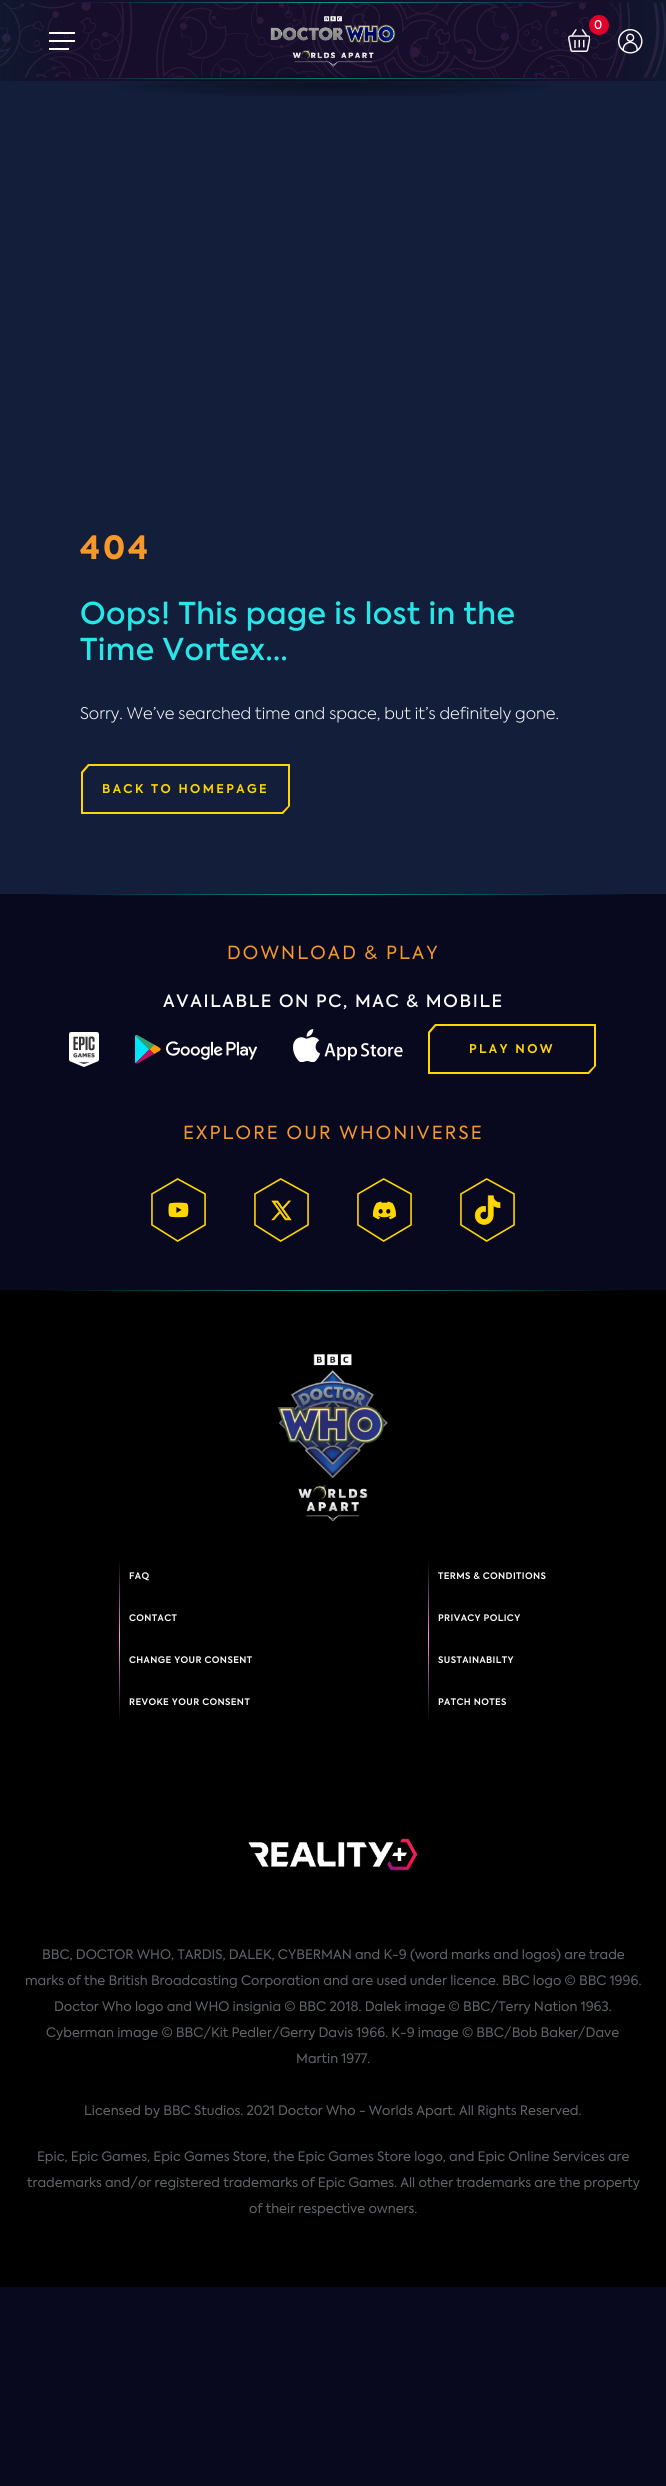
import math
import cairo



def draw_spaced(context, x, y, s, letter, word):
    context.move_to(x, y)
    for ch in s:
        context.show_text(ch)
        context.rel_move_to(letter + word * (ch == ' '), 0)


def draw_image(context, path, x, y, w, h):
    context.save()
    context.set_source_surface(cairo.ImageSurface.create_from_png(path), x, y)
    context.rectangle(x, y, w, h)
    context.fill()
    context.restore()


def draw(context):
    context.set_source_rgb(8 / 255, 9 / 255, 30 / 255)
    context.paint()
    gradient = cairo.LinearGradient(666, 41, 0, 40)
    gradient.add_color_stop_rgba(0, 15 / 255, 24 / 255, 47 / 255, 1)
    gradient.add_color_stop_rgba(0.1, 22 / 255, 14 / 255, 42 / 255, 1)
    gradient.add_color_stop_rgba(0.9, 22 / 255, 14 / 255, 42 / 255, 1)
    gradient.add_color_stop_rgba(1, 15 / 255, 24 / 255, 47 / 255, 1)
    context.set_source(gradient)
    context.rectangle(0, 0, 666, 81)
    context.fill()
    gradient = cairo.LinearGradient(666, 2.5, 0, 2.5)
    gradient.add_color_stop_rgba(0, 9 / 255, 151 / 255, 152 / 255, 0)
    gradient.add_color_stop_rgba(0.1, 9 / 255, 151 / 255, 152 / 255, 0)
    gradient.add_color_stop_rgba(0.5, 9 / 255, 151 / 255, 152 / 255, 1)
    gradient.add_color_stop_rgba(0.9, 9 / 255, 151 / 255, 152 / 255, 0)
    gradient.add_color_stop_rgba(1, 9 / 255, 151 / 255, 152 / 255, 0)
    context.set_source(gradient)
    context.rectangle(72, 2, 522, 1)
    context.fill()
    draw_image(context, "images/1.png", 0, 2, 666, 76)
    draw_image(context, "images/2.png", 270, 16, 126, 51)
    draw_image(context, "images/3.png", 568, 29, 22, 23)
    context.set_source_rgb(224 / 255, 0, 41 / 255)
    context.arc(599, 25, 10, 0, 2 * math.pi)
    context.fill()
    draw_image(context, "images/4.png", 618, 29, 25, 25)
    context.set_source_rgb(1, 1, 1)
    context.rectangle(49, 32, 26, 2)
    context.fill()
    context.rectangle(49, 40, 26, 2)
    context.fill()
    context.rectangle(49, 48, 20, 2)
    context.fill()
    gradient = cairo.LinearGradient(666, 79, 0, 78)
    gradient.add_color_stop_rgba(0, 9 / 255, 151 / 255, 152 / 255, 0)
    gradient.add_color_stop_rgba(0.1, 9 / 255, 151 / 255, 152 / 255, 0)
    gradient.add_color_stop_rgba(0.5, 9 / 255, 151 / 255, 152 / 255, 1)
    gradient.add_color_stop_rgba(0.9, 9 / 255, 151 / 255, 152 / 255, 0)
    gradient.add_color_stop_rgba(1, 9 / 255, 151 / 255, 152 / 255, 0)
    context.set_source(gradient)
    context.rectangle(72, 78, 522, 1)
    context.fill()
    context.set_source_rgb(19 / 255, 30 / 255, 59 / 255)
    context.rectangle(0, 81, 666, 813)
    context.fill()
    gradient = cairo.RadialGradient(0, 0, 0, 0, 0, 1)
    gradient.set_matrix(cairo.Matrix(1 / 233, 0, 0, 1 / 12, -1 * 333 / 233, -1 * 86 / 12))
    gradient.add_color_stop_rgba(0, 0, 0, 0, 0.4)
    gradient.add_color_stop_rgba(0.25, 0, 0, 0, 0.3)
    gradient.add_color_stop_rgba(0.75, 0, 0, 0, 0.15)
    gradient.add_color_stop_rgba(1, 0, 0, 0, 0)
    context.set_source(gradient)
    context.rectangle(118, 75, 430, 22)
    context.fill()
    context.set_source_rgb(1, 214 / 255, 2 / 255)
    context.new_path()
    context.move_to(88, 764)
    context.line_to(81, 772)
    context.line_to(81, 814)
    context.line_to(83, 814)
    context.line_to(83, 773)
    context.line_to(89, 766)
    context.line_to(89, 764)
    context.close_path()
    context.fill()
    context.rectangle(88, 764, 201, 2)
    context.fill()
    context.rectangle(82, 812, 201, 2)
    context.fill()
    context.new_path()
    context.move_to(283, 814)
    context.line_to(290, 806)
    context.line_to(290, 764)
    context.line_to(288, 764)
    context.line_to(288, 806)
    context.line_to(282, 812)
    context.line_to(282, 814)
    context.close_path()
    context.fill()
    gradient = cairo.LinearGradient(0, 895, 666, 895)
    gradient.add_color_stop_rgba(0, 8 / 255, 9 / 255, 30 / 255, 1)
    gradient.add_color_stop_rgba(0.05, 8 / 255, 9 / 255, 30 / 255, 1)
    gradient.add_color_stop_rgba(0.5, 9 / 255, 151 / 255, 152 / 255, 1)
    gradient.add_color_stop_rgba(0.95, 8 / 255, 9 / 255, 30 / 255, 1)
    gradient.add_color_stop_rgba(1, 8 / 255, 9 / 255, 30 / 255, 1)
    context.set_source(gradient)
    context.rectangle(39, 894, 588, 1)
    context.fill()
    draw_image(context, "images/5.png", 69, 1032, 30, 35)
    draw_image(context, "images/6.png", 135, 1035, 122, 29)
    draw_image(context, "images/7.png", 293, 1029, 110, 33)
    context.set_source_rgb(1, 214 / 255, 2 / 255)
    context.new_path()
    context.move_to(435, 1024)
    context.line_to(428, 1032)
    context.line_to(428, 1074)
    context.line_to(430, 1074)
    context.line_to(430, 1033)
    context.line_to(436, 1026)
    context.line_to(436, 1024)
    context.close_path()
    context.fill()
    context.rectangle(435, 1024, 160, 2)
    context.fill()
    context.rectangle(429, 1072, 160, 2)
    context.fill()
    context.new_path()
    context.move_to(589, 1074)
    context.line_to(596, 1066)
    context.line_to(596, 1024)
    context.line_to(594, 1024)
    context.line_to(594, 1066)
    context.line_to(588, 1072)
    context.line_to(588, 1074)
    context.close_path()
    context.fill()
    draw_image(context, "images/8.png", 151, 1178, 55, 64)
    draw_image(context, "images/9.png", 254, 1178, 55, 64)
    draw_image(context, "images/10.png", 357, 1178, 55, 64)
    draw_image(context, "images/11.png", 460, 1178, 55, 64)
    gradient = cairo.LinearGradient(0, 1291, 666, 1291)
    gradient.add_color_stop_rgba(0, 0, 0, 0, 1)
    gradient.add_color_stop_rgba(0.05, 0, 0, 0, 1)
    gradient.add_color_stop_rgba(0.5, 9 / 255, 151 / 255, 152 / 255, 1)
    gradient.add_color_stop_rgba(0.95, 0, 0, 0, 1)
    gradient.add_color_stop_rgba(1, 0, 0, 0, 1)
    context.set_source(gradient)
    context.rectangle(0, 1290, 666, 1)
    context.fill()
    context.set_source_rgb(0, 0, 0)
    context.rectangle(0, 1291, 666, 996)
    context.fill()
    draw_image(context, "images/12.png", 277, 1354, 111, 168)
    gradient = cairo.LinearGradient(119, 1541, 120, 1731)
    gradient.add_color_stop_rgba(0, 0, 0, 0, 1)
    gradient.add_color_stop_rgba(0.1, 0, 0, 0, 1)
    gradient.add_color_stop_rgba(0.5, 1, 145 / 255, 232 / 255, 1)
    gradient.add_color_stop_rgba(0.95, 0, 0, 0, 1)
    gradient.add_color_stop_rgba(1, 0, 0, 0, 1)
    context.set_source(gradient)
    context.rectangle(119, 1561, 1, 160)
    context.fill()
    gradient = cairo.LinearGradient(429, 1541, 429, 1731)
    gradient.add_color_stop_rgba(0, 0, 0, 0, 1)
    gradient.add_color_stop_rgba(0.1, 0, 0, 0, 1)
    gradient.add_color_stop_rgba(0.5, 1, 145 / 255, 232 / 255, 1)
    gradient.add_color_stop_rgba(0.95, 0, 0, 0, 1)
    gradient.add_color_stop_rgba(1, 0, 0, 0, 1)
    context.set_source(gradient)
    context.rectangle(428, 1561, 1, 160)
    context.fill()
    draw_image(context, "images/13.png", 248, 1838, 170, 33)
    context.select_font_face("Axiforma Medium")
    context.set_font_size(12)
    context.set_source_rgb(250 / 255, 250 / 255, 250 / 255)
    draw_spaced(context, 594, 29, "0", 2, 0)
    context.select_font_face("Axiforma ExtraBold")
    context.set_font_size(32)
    context.set_source_rgb(247 / 255, 153 / 255, 40 / 255)
    draw_spaced(context, 80, 559, "404", 3, 0)
    context.select_font_face("Axiforma Medium")
    context.set_font_size(30)
    context.set_source_rgb(40 / 255, 230 / 255, 231 / 255)
    draw_spaced(context, 80, 624, "Oops! This page is lost in the", 0.45, 0)
    draw_spaced(context, 80, 660, "Time Vortex...", 0.45, 0)
    context.select_font_face("Axiforma Light")
    context.set_font_size(16)
    context.set_source_rgb(250 / 255, 250 / 255, 250 / 255)
    context.move_to(80, 719)
    context.show_text("Sorry. We’ve searched time and space, but it’s definitely gone.")
    context.select_font_face("Axiforma SemiBold")
    context.set_font_size(12)
    context.set_source_rgb(1, 214 / 255, 2 / 255)
    draw_spaced(context, 102, 793, "BACK TO HOMEPAGE", 2.4, 0)
    context.select_font_face("Axiforma")
    context.set_font_size(18)
    context.set_source_rgb(247 / 255, 153 / 255, 40 / 255)
    draw_spaced(context, 227, 959, "DOWNLOAD & PLAY", 2.2, 0)
    context.select_font_face("Axiforma Medium")
    context.set_font_size(17)
    context.set_source_rgb(250 / 255, 250 / 255, 250 / 255)
    draw_spaced(context, 163, 1007, "AVAILABLE ON PC, MAC & MOBILE", 1.7, 0)
    context.select_font_face("Axiforma SemiBold")
    context.set_font_size(12)
    context.set_source_rgb(1, 214 / 255, 2 / 255)
    draw_spaced(context, 469, 1053, "PLAY NOW", 2.4, 0)
    context.select_font_face("Axiforma")
    context.set_font_size(18)
    context.set_source_rgb(247 / 255, 153 / 255, 40 / 255)
    draw_spaced(context, 183, 1139, "EXPLORE OUR WHONIVERSE", 2.2, 0)
    context.select_font_face("Axiforma SemiBold")
    context.set_font_size(9)
    context.set_source_rgb(250 / 255, 250 / 255, 250 / 255)
    draw_spaced(context, 129, 1579, "FAQ", 0.4, 0)
    draw_spaced(context, 129, 1621, "CONTACT", 0.4, 0)
    draw_spaced(context, 129, 1663, "CHANGE YOUR CONSENT", 0.4, 0)
    draw_spaced(context, 129, 1705, "REVOKE YOUR CONSENT", 0.4, 0)
    draw_spaced(context, 438, 1579, "TERMS & CONDITIONS", 0.4, 0)
    draw_spaced(context, 438, 1621, "PRIVACY POLICY", 0.4, 0)
    draw_spaced(context, 438, 1663, "SUSTAINABILTY", 0.4, 0)
    draw_spaced(context, 438, 1705, "PATCH NOTES", 0.4, 0)
    context.select_font_face("Axiforma")
    context.set_font_size(13)
    context.set_source_rgb(97 / 255, 101 / 255, 104 / 255)
    context.move_to(42, 1959)
    context.show_text("BBC, DOCTOR WHO, TARDIS, DALEK, CYBERMAN and K-9 (word marks and logos) are trade")
    context.move_to(25, 1985)
    context.show_text("marks of the British Broadcasting Corporation and are used under licence. BBC logo © BBC 1996.")
    context.move_to(54, 2011)
    context.show_text("Doctor Who logo and WHO insignia © BBC 2018. Dalek image © BBC/Terry Nation 1963.")
    context.move_to(46, 2037)
    context.show_text("Cyberman image © BBC/Kit Pedler/Gerry Davis 1966. K-9 image © BBC/Bob Baker/Dave")
    context.move_to(296, 2063)
    context.show_text("Martin 1977.")
    context.move_to(84, 2115)
    context.show_text("Licensed by BBC Studios. 2021 Doctor Who - Worlds Apart. All Rights Reserved.")
    context.move_to(37, 2161)
    context.show_text("Epic, Epic Games, Epic Games Store, the Epic Games Store logo, and Epic Online Services are")
    context.move_to(27, 2187)
    context.show_text("trademarks and/or registered trademarks of Epic Games. All other trademarks are the property")
    context.move_to(249, 2213)
    context.show_text("of their respective owners.")


surface = cairo.ImageSurface(cairo.Format.RGB24, 666, 2486)
context = cairo.Context(surface)
options = cairo.FontOptions()
options.set_hint_metrics(cairo.HintMetrics.OFF)
options.set_hint_style(cairo.HintStyle.NONE)
context.set_font_options(options)
context.set_miter_limit(4)
draw(context)
surface.write_to_png("out.png")
